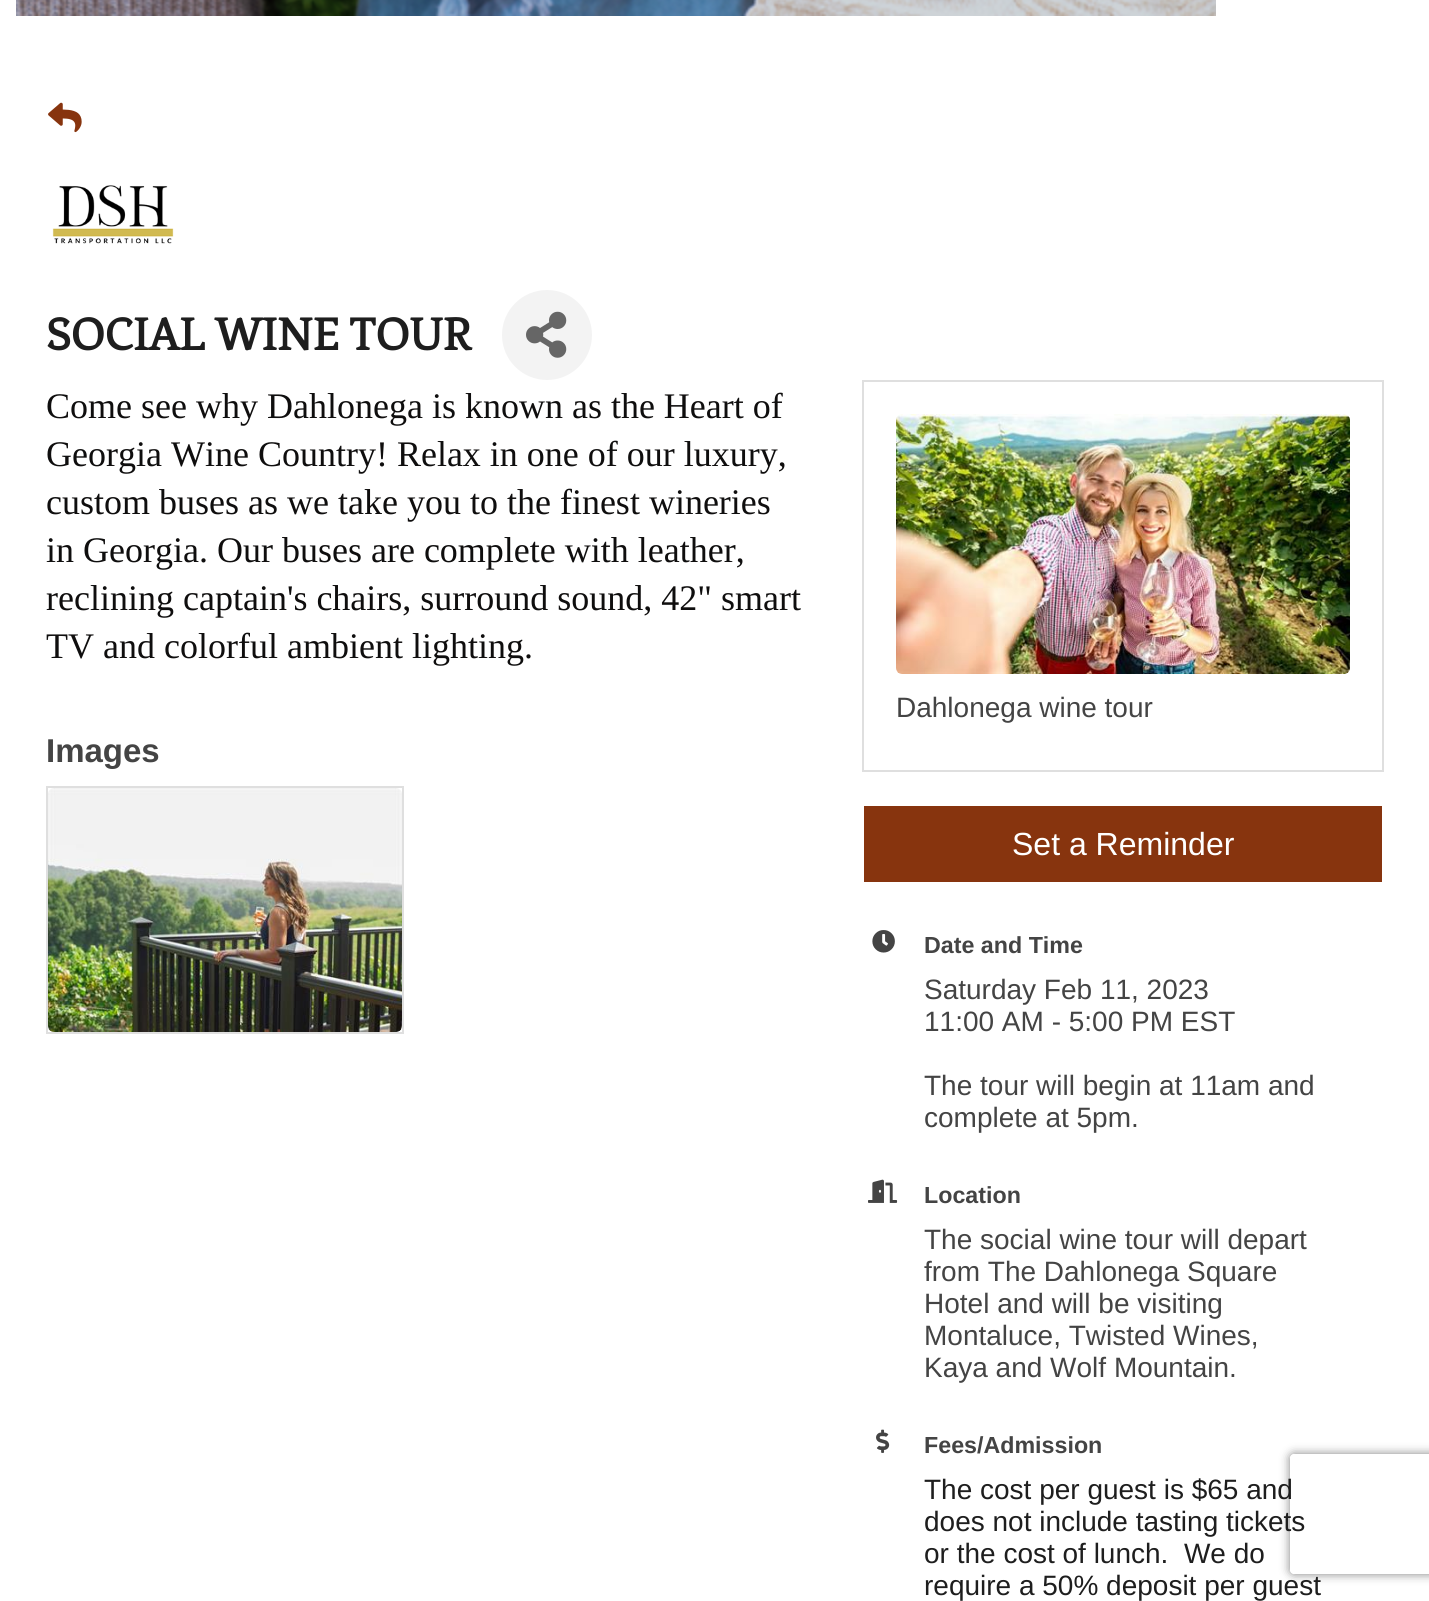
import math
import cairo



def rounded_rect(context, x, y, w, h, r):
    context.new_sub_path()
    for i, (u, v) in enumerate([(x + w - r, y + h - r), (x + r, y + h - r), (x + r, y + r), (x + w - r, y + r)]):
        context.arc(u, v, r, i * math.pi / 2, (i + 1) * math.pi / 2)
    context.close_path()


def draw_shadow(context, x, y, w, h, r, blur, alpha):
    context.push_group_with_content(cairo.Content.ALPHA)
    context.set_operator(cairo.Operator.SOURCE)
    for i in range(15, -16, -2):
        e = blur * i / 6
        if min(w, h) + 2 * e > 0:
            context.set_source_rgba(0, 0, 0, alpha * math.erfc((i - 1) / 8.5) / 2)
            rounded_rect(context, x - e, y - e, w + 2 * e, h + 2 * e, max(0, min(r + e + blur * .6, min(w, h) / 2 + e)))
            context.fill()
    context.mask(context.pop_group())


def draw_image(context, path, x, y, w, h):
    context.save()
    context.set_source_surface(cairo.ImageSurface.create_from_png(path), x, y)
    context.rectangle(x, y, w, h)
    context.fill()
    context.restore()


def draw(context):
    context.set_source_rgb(1, 1, 1)
    context.paint()
    draw_image(context, "images/1.png", 16, 0, 1200, 16)
    draw_image(context, "images/2.png", 48, 102, 34, 31)
    draw_image(context, "images/3.png", 52, 185, 122, 59)
    context.set_source_rgb(243 / 255, 243 / 255, 243 / 255)
    context.arc(547, 335, 45, 0, 2 * math.pi)
    context.fill()
    draw_image(context, "images/4.png", 526, 311, 41, 47)
    context.rectangle(47, 787, 356, 246)
    context.set_source_rgb(223 / 255, 223 / 255, 223 / 255)
    context.stroke()
    draw_image(context, "images/5.png", 48, 788, 354, 244)
    context.rectangle(863, 381, 520, 390)
    context.stroke()
    draw_image(context, "images/6.png", 896, 414, 454, 260)
    context.set_source_rgb(135 / 255, 52 / 255, 14 / 255)
    context.rectangle(864, 806, 518, 76)
    context.fill()
    draw_image(context, "images/7.png", 872, 930, 23, 23)
    draw_image(context, "images/8.png", 868, 1179, 30, 24)
    draw_image(context, "images/9.png", 876, 1429, 14, 24)
    context.save()
    context.set_fill_rule(cairo.FillRule.EVEN_ODD)
    context.new_path()
    context.move_to(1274, 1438)
    context.line_to(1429, 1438)
    context.line_to(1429, 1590)
    context.line_to(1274, 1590)
    context.close_path()
    context.move_to(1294, 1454)
    context.line_to(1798, 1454)
    context.curve_to(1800, 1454, 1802, 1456, 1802, 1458)
    context.line_to(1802, 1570)
    context.curve_to(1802, 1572, 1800, 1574, 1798, 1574)
    context.line_to(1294, 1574)
    context.curve_to(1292, 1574, 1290, 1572, 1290, 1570)
    context.line_to(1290, 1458)
    context.curve_to(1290, 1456, 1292, 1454, 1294, 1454)
    context.close_path()
    context.clip()
    context.set_source_rgb(128 / 255, 128 / 255, 128 / 255)
    draw_shadow(context, 1290, 1454, 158, 120, 4, 5, 1)
    context.restore()
    context.select_font_face("Fenix", cairo.FontSlant.NORMAL, cairo.FontWeight.BOLD)
    context.set_font_size(48)
    context.set_source_rgb(30 / 255, 30 / 255, 30 / 255)
    context.move_to(46, 350)
    context.show_text("SOCIAL WINE TOUR")
    context.select_font_face("Liberation Serif")
    context.set_font_size(36)
    context.set_source_rgb(15 / 255, 14 / 255, 14 / 255)
    context.move_to(46, 418)
    context.show_text("Come see why Dahlonega is known as the Heart of")
    context.move_to(46, 466)
    context.show_text("Georgia Wine Country! Relax in one of our luxury,")
    context.move_to(46, 514)
    context.show_text("custom buses as we take you to the finest wineries")
    context.move_to(46, 562)
    context.show_text("in Georgia. Our buses are complete with leather,")
    context.move_to(46, 610)
    context.show_text("reclining captain's chairs, surround sound, 42\" smart")
    context.move_to(46, 658)
    context.show_text("TV and colorful ambient lighting.")
    context.select_font_face("Liberation Sans", cairo.FontSlant.NORMAL, cairo.FontWeight.BOLD)
    context.set_font_size(33)
    context.set_source_rgb(68 / 255, 68 / 255, 68 / 255)
    context.move_to(46, 762)
    context.show_text("Images")
    context.select_font_face("Liberation Sans")
    context.set_font_size(28)
    context.move_to(896, 717)
    context.show_text("Dahlonega wine tour")
    context.set_font_size(32)
    context.set_source_rgb(1, 1, 1)
    context.move_to(1012, 855)
    context.show_text("Set a Reminder")
    context.select_font_face("Liberation Sans", cairo.FontSlant.NORMAL, cairo.FontWeight.BOLD)
    context.set_font_size(23.25)
    context.set_source_rgb(68 / 255, 68 / 255, 68 / 255)
    context.move_to(924, 953)
    context.show_text("Date and Time")
    context.select_font_face("Liberation Sans")
    context.set_font_size(28)
    context.move_to(924, 999)
    context.show_text("Saturday Feb 11, 2023")
    context.move_to(924, 1031)
    context.show_text("11:00 AM - 5:00 PM EST")
    context.move_to(924, 1095)
    context.show_text("The tour will begin at 11am and")
    context.move_to(924, 1127)
    context.show_text("complete at 5pm.")
    context.select_font_face("Liberation Sans", cairo.FontSlant.NORMAL, cairo.FontWeight.BOLD)
    context.set_font_size(23.25)
    context.move_to(924, 1203)
    context.show_text("Location")
    context.select_font_face("Liberation Sans")
    context.set_font_size(28)
    context.move_to(924, 1249)
    context.show_text("The social wine tour will depart")
    context.move_to(924, 1281)
    context.show_text("from The Dahlonega Square")
    context.move_to(924, 1313)
    context.show_text("Hotel and will be visiting")
    context.move_to(924, 1345)
    context.show_text("Montaluce, Twisted Wines,")
    context.move_to(924, 1377)
    context.show_text("Kaya and Wolf Mountain.")
    context.select_font_face("Liberation Sans", cairo.FontSlant.NORMAL, cairo.FontWeight.BOLD)
    context.set_font_size(23.25)
    context.move_to(924, 1453)
    context.show_text("Fees/Admission")
    context.select_font_face("Liberation Sans")
    context.set_font_size(28)
    context.set_source_rgb(30 / 255, 30 / 255, 30 / 255)
    context.move_to(924, 1499)
    context.show_text("The cost per guest is $65 and")
    context.move_to(924, 1531)
    context.show_text("does not include tasting tickets")
    context.move_to(924, 1563)
    context.show_text("or the cost of lunch.  We do")
    context.move_to(924, 1595)
    context.show_text("require a 50% deposit per guest")


surface = cairo.ImageSurface(cairo.Format.RGB24, 1429, 1601)
context = cairo.Context(surface)
options = cairo.FontOptions()
options.set_hint_metrics(cairo.HintMetrics.OFF)
options.set_hint_style(cairo.HintStyle.NONE)
context.set_font_options(options)
context.set_miter_limit(4)
draw(context)
surface.write_to_png("out.png")
